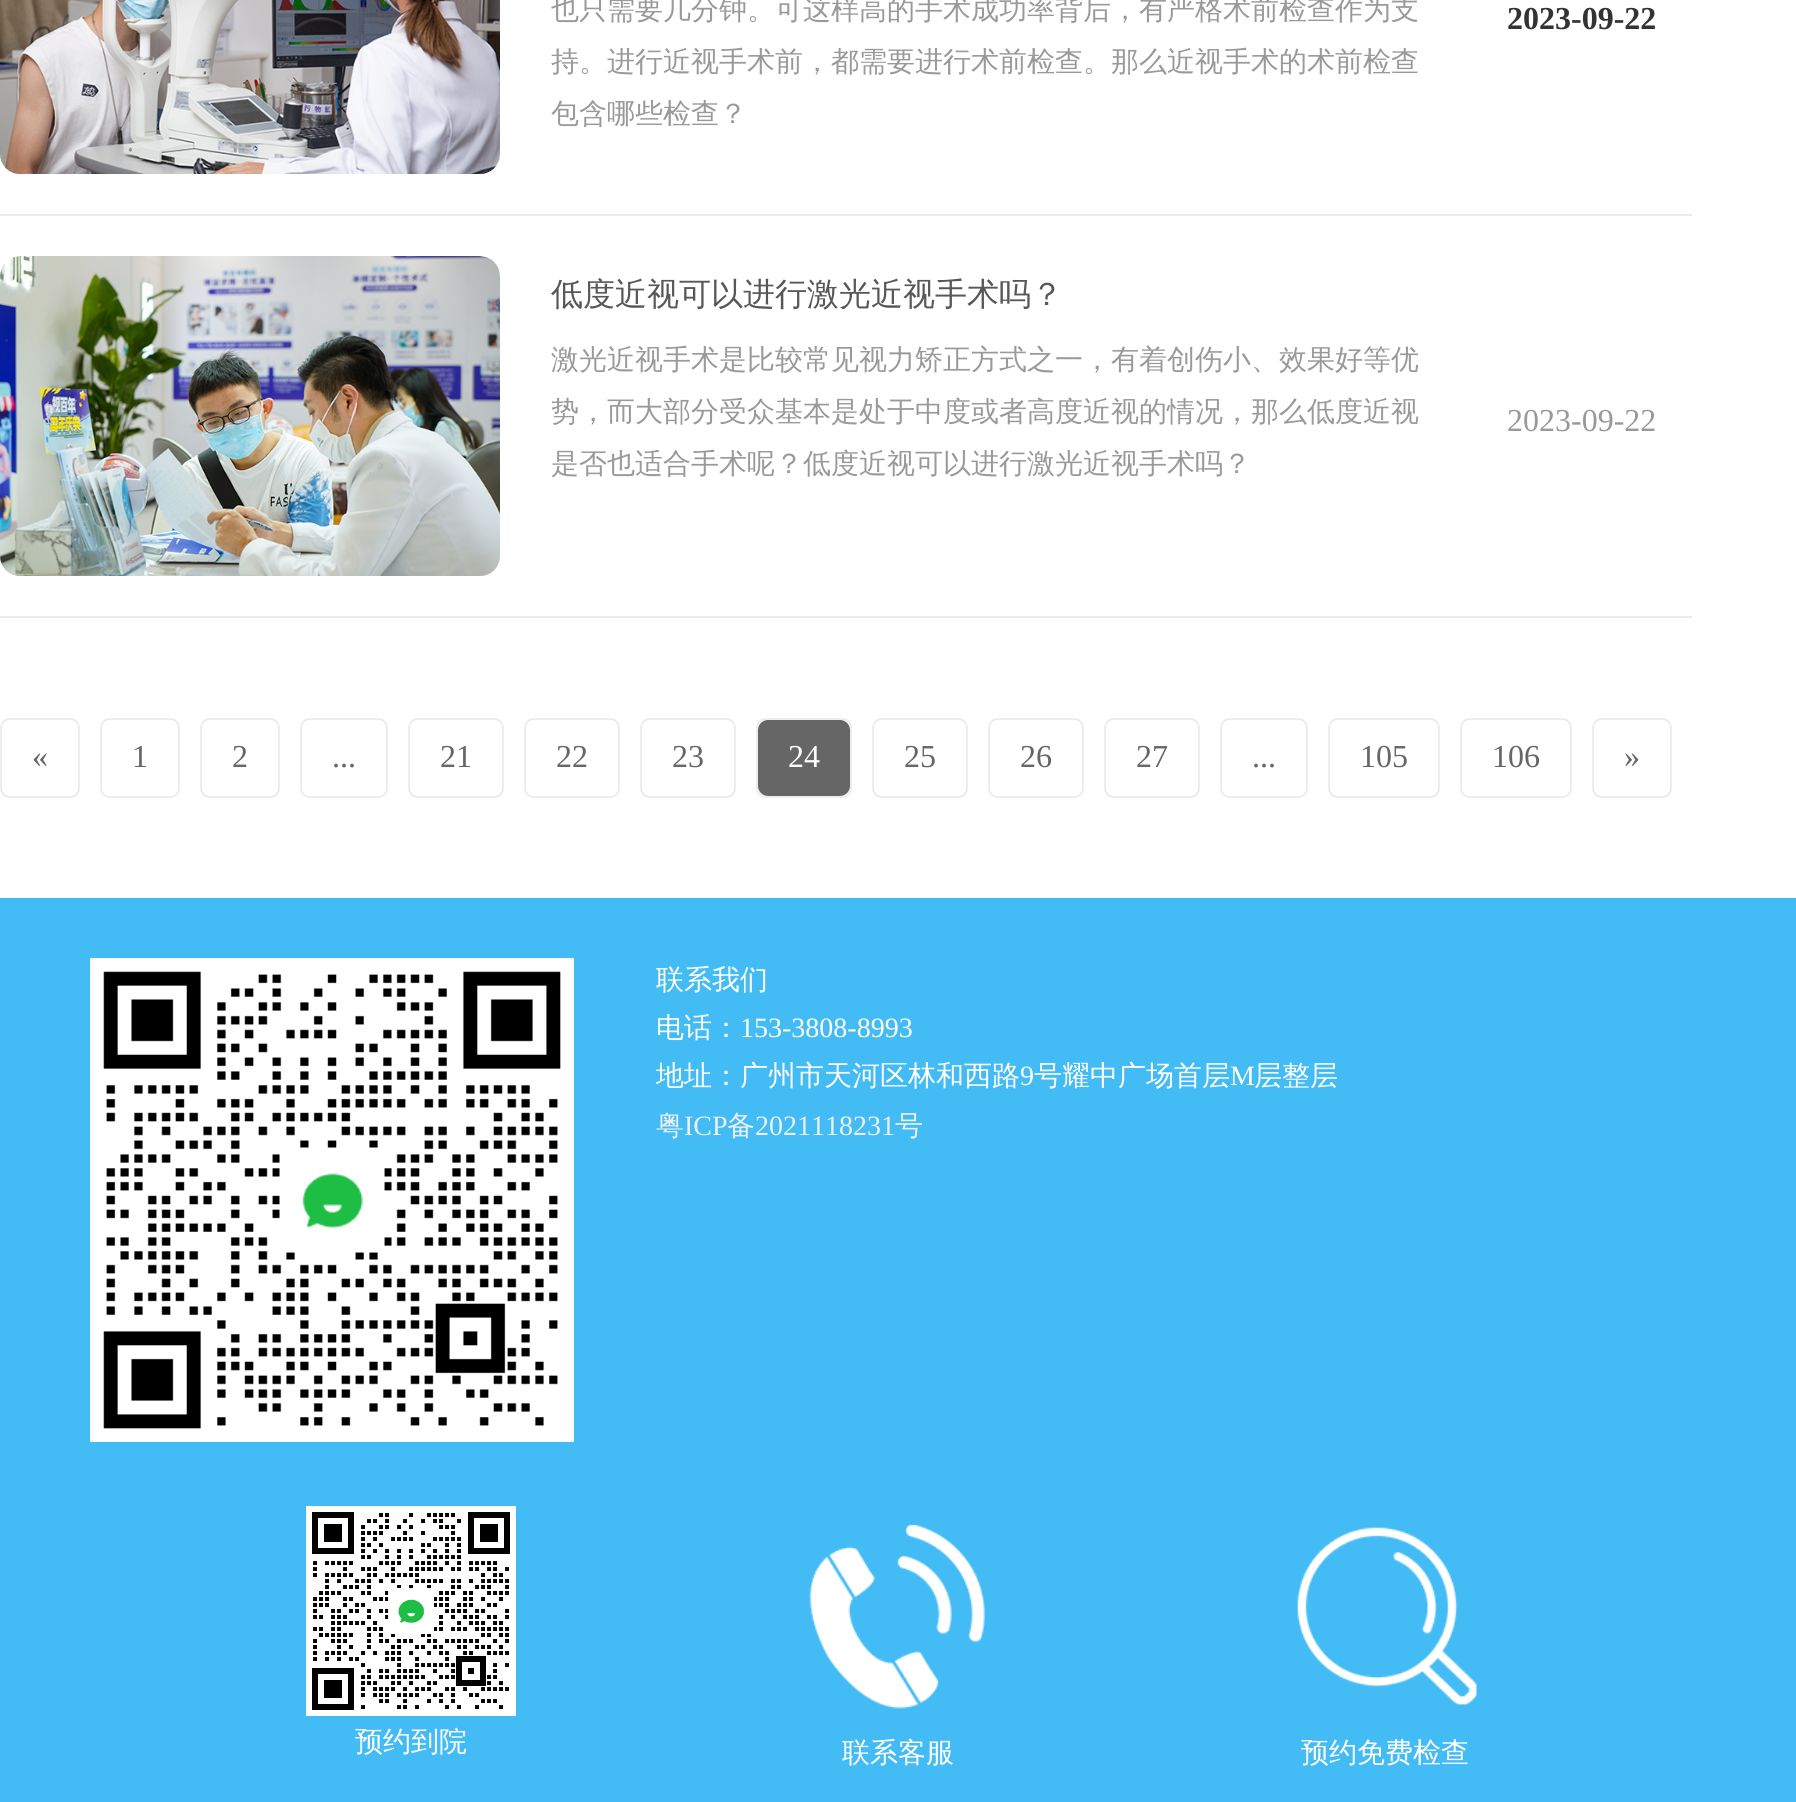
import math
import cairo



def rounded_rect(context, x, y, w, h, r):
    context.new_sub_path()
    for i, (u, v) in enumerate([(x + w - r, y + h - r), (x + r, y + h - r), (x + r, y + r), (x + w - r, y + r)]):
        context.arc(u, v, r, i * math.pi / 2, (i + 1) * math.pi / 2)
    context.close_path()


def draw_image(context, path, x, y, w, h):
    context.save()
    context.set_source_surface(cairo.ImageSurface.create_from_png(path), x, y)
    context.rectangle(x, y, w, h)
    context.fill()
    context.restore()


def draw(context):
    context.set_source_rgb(1, 1, 1)
    context.paint()
    draw_image(context, "images/1.png", 0, 0, 500, 174)
    context.set_source_rgb(236 / 255, 236 / 255, 235 / 255)
    context.rectangle(0, 214, 1692, 2)
    context.fill()
    context.rectangle(0, 616, 1692, 2)
    context.fill()
    draw_image(context, "images/2.png", 0, 256, 500, 320)
    rounded_rect(context, 1, 719, 78, 78, 9)
    context.set_source_rgb(237 / 255, 237 / 255, 236 / 255)
    context.stroke()
    rounded_rect(context, 101, 719, 78, 78, 9)
    context.stroke()
    rounded_rect(context, 201, 719, 78, 78, 9)
    context.stroke()
    rounded_rect(context, 301, 719, 86, 78, 9)
    context.stroke()
    rounded_rect(context, 409, 719, 94, 78, 9)
    context.stroke()
    rounded_rect(context, 525, 719, 94, 78, 9)
    context.stroke()
    rounded_rect(context, 641, 719, 94, 78, 9)
    context.stroke()
    rounded_rect(context, 757, 719, 94, 78, 9)
    context.stroke()
    context.set_source_rgb(102 / 255, 102 / 255, 102 / 255)
    rounded_rect(context, 758, 720, 92, 76, 10)
    context.fill()
    rounded_rect(context, 873, 719, 94, 78, 9)
    context.set_source_rgb(237 / 255, 237 / 255, 236 / 255)
    context.stroke()
    rounded_rect(context, 989, 719, 94, 78, 9)
    context.stroke()
    rounded_rect(context, 1105, 719, 94, 78, 9)
    context.stroke()
    rounded_rect(context, 1221, 719, 86, 78, 9)
    context.stroke()
    rounded_rect(context, 1329, 719, 110, 78, 9)
    context.stroke()
    rounded_rect(context, 1461, 719, 110, 78, 9)
    context.stroke()
    rounded_rect(context, 1593, 719, 78, 78, 9)
    context.stroke()
    context.set_source_rgb(67 / 255, 187 / 255, 244 / 255)
    context.rectangle(0, 898, 1796, 904)
    context.fill()
    draw_image(context, "images/3.png", 90, 958, 484, 484)
    draw_image(context, "images/4.png", 306, 1506, 210, 210)
    draw_image(context, "images/5.png", 809, 1524, 176, 185)
    draw_image(context, "images/6.png", 1297, 1527, 180, 178)
    context.select_font_face("WenQuanYi Zen Hei Medium")
    context.set_font_size(28)
    context.set_source_rgb(153 / 255, 153 / 255, 153 / 255)
    context.move_to(551, 19)
    context.show_text("也只需要几分钟。可这样高的手术成功率背后，有严格术前检查作为支")
    context.move_to(551, 71)
    context.show_text("持。进行近视手术前，都需要进行术前检查。那么近视手术的术前检查")
    context.move_to(551, 123)
    context.show_text("包含哪些检查？")
    context.select_font_face("Liberation Serif", cairo.FontSlant.NORMAL, cairo.FontWeight.BOLD)
    context.set_font_size(32)
    context.set_source_rgb(51 / 255, 51 / 255, 51 / 255)
    context.move_to(1507, 29)
    context.show_text("2023-09-22")
    context.select_font_face("WenQuanYi Zen Hei Medium")
    context.set_source_rgb(87 / 255, 87 / 255, 87 / 255)
    context.move_to(551, 305)
    context.show_text("低度近视可以进行激光近视手术吗？")
    context.set_font_size(28)
    context.set_source_rgb(153 / 255, 153 / 255, 153 / 255)
    context.move_to(551, 369)
    context.show_text("激光近视手术是比较常见视力矫正方式之一，有着创伤小、效果好等优")
    context.move_to(551, 421)
    context.show_text("势，而大部分受众基本是处于中度或者高度近视的情况，那么低度近视")
    context.move_to(551, 473)
    context.show_text("是否也适合手术呢？低度近视可以进行激光近视手术吗？")
    context.select_font_face("Liberation Serif")
    context.set_font_size(32)
    context.move_to(1507, 431)
    context.show_text("2023-09-22")
    context.set_source_rgb(102 / 255, 102 / 255, 102 / 255)
    context.move_to(32, 767)
    context.show_text("«")
    context.move_to(132, 767)
    context.show_text("1")
    context.move_to(232, 767)
    context.show_text("2")
    context.move_to(332, 767)
    context.show_text("...")
    context.move_to(440, 767)
    context.show_text("21")
    context.move_to(556, 767)
    context.show_text("22")
    context.move_to(672, 767)
    context.show_text("23")
    context.set_source_rgb(1, 1, 1)
    context.move_to(788, 767)
    context.show_text("24")
    context.set_source_rgb(102 / 255, 102 / 255, 102 / 255)
    context.move_to(904, 767)
    context.show_text("25")
    context.move_to(1020, 767)
    context.show_text("26")
    context.move_to(1136, 767)
    context.show_text("27")
    context.move_to(1252, 767)
    context.show_text("...")
    context.move_to(1360, 767)
    context.show_text("105")
    context.move_to(1492, 767)
    context.show_text("106")
    context.move_to(1624, 767)
    context.show_text("»")
    context.select_font_face("WenQuanYi Zen Hei Medium")
    context.set_font_size(28)
    context.set_source_rgb(1, 1, 1)
    context.move_to(656, 989)
    context.show_text("联系我们")
    context.move_to(656, 1037)
    context.show_text("电话：")
    context.select_font_face("Liberation Serif")
    context.move_to(740, 1037)
    context.show_text("153-3808-8993")
    context.select_font_face("WenQuanYi Zen Hei Medium")
    context.move_to(656, 1085)
    context.show_text("地址：广州市天河区林和西路")
    context.select_font_face("Liberation Serif")
    context.move_to(1020, 1085)
    context.show_text("9")
    context.select_font_face("WenQuanYi Zen Hei Medium")
    context.move_to(1034, 1085)
    context.show_text("号耀中广场首层")
    context.select_font_face("Liberation Serif")
    context.move_to(1230, 1085)
    context.show_text("M")
    context.select_font_face("WenQuanYi Zen Hei Medium")
    context.move_to(1254, 1085)
    context.show_text("层整层")
    context.set_source_rgb(236 / 255, 240 / 255, 241 / 255)
    context.move_to(656, 1135)
    context.show_text("粤")
    context.select_font_face("Liberation Serif")
    context.move_to(684, 1135)
    context.show_text("ICP")
    context.select_font_face("WenQuanYi Zen Hei Medium")
    context.move_to(727, 1135)
    context.show_text("备")
    context.select_font_face("Liberation Serif")
    context.move_to(755, 1135)
    context.show_text("2021118231")
    context.select_font_face("WenQuanYi Zen Hei Medium")
    context.move_to(895, 1135)
    context.show_text("号")
    context.set_source_rgb(1, 1, 1)
    context.move_to(355, 1751)
    context.show_text("预约到院")
    context.move_to(842, 1762)
    context.show_text("联系客服")
    context.move_to(1301, 1762)
    context.show_text("预约免费检查")


surface = cairo.ImageSurface(cairo.Format.RGB24, 1796, 1802)
context = cairo.Context(surface)
options = cairo.FontOptions()
options.set_hint_metrics(cairo.HintMetrics.OFF)
options.set_hint_style(cairo.HintStyle.NONE)
context.set_font_options(options)
context.set_miter_limit(4)
draw(context)
surface.write_to_png("out.png")
